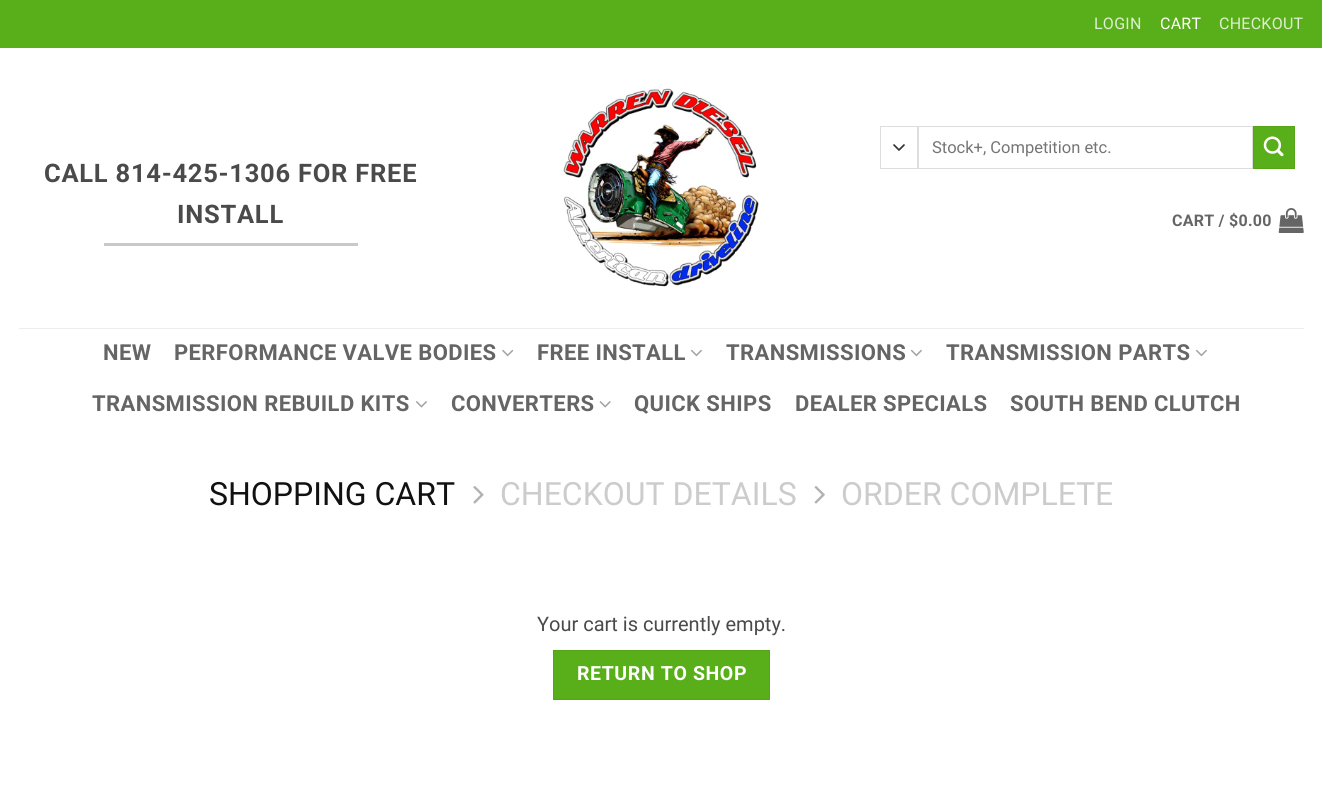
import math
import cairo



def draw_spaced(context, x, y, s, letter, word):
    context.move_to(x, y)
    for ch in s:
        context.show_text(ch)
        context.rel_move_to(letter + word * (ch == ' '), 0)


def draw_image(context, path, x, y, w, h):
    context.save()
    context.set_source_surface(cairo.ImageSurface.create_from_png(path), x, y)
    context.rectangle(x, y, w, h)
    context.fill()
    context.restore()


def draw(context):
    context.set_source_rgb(1, 1, 1)
    context.paint()
    context.set_source_rgb(88 / 255, 175 / 255, 25 / 255)
    context.rectangle(0, 0, 1322, 48)
    context.fill()
    context.set_source_rgb(201 / 255, 201 / 255, 201 / 255)
    context.rectangle(104, 243, 254, 3)
    context.fill()
    draw_image(context, "images/1.png", 563, 88, 196, 199)
    context.new_path()
    context.move_to(894, 145)
    context.line_to(899, 150)
    context.line_to(904, 145)
    context.set_source_rgb(51 / 255, 51 / 255, 51 / 255)
    context.set_line_width(1.7)
    context.set_line_cap(cairo.LineCap.ROUND)
    context.set_line_join(cairo.LineJoin.ROUND)
    context.stroke()
    context.rectangle(880.5, 126.5, 37, 42)
    context.set_source_rgb(221 / 255, 221 / 255, 221 / 255)
    context.set_line_width(1)
    context.set_line_cap(cairo.LineCap.BUTT)
    context.set_line_join(cairo.LineJoin.MITER)
    context.stroke()
    context.rectangle(918.5, 126.5, 334, 42)
    context.stroke()
    context.set_source_rgb(88 / 255, 175 / 255, 25 / 255)
    context.rectangle(1253.5, 126.5, 41, 42)
    context.fill_preserve()
    context.set_source_rgb(84 / 255, 166 / 255, 24 / 255)
    context.stroke()
    draw_image(context, "images/2.png", 1263, 136, 21, 21)
    draw_image(context, "images/3.png", 1278, 208, 26, 25)
    context.set_source_rgb(237 / 255, 237 / 255, 237 / 255)
    context.rectangle(19, 328, 1285, 1)
    context.fill()
    draw_image(context, "images/4.png", 502, 349, 12, 8)
    draw_image(context, "images/5.png", 690, 349, 12, 8)
    draw_image(context, "images/5.png", 910, 349, 12, 8)
    draw_image(context, "images/5.png", 1195, 349, 12, 8)
    draw_image(context, "images/6.png", 416, 401, 11, 7)
    draw_image(context, "images/7.png", 599, 401, 12, 7)
    draw_image(context, "images/8.png", 473, 486, 11, 18)
    draw_image(context, "images/9.png", 814, 486, 11, 18)
    context.set_source_rgb(88 / 255, 175 / 255, 25 / 255)
    context.rectangle(553.5, 650.5, 216, 49)
    context.fill_preserve()
    context.set_source_rgb(84 / 255, 166 / 255, 24 / 255)
    context.stroke()
    context.select_font_face("Roboto")
    context.set_font_size(16)
    context.set_source_rgb(222 / 255, 239 / 255, 209 / 255)
    draw_spaced(context, 1094, 29, "LOGIN", 0.25, 0)
    context.set_source_rgb(1, 1, 1)
    draw_spaced(context, 1160, 29, "CART", 0.25, 0)
    context.set_source_rgb(222 / 255, 239 / 255, 209 / 255)
    draw_spaced(context, 1219, 29, "CHECKOUT", 0.25, 0)
    context.select_font_face("Roboto", cairo.FontSlant.NORMAL, cairo.FontWeight.BOLD)
    context.set_font_size(25.5)
    context.set_source_rgb(74 / 255, 74 / 255, 74 / 255)
    draw_spaced(context, 44, 182, "CALL 814-425-1306 FOR FREE", 0.75, 0)
    draw_spaced(context, 177, 223, "INSTALL", 0.75, 0)
    context.select_font_face("Roboto")
    context.set_font_size(16.5)
    context.set_source_rgb(117 / 255, 117 / 255, 117 / 255)
    context.move_to(932, 153)
    context.show_text("Stock+, Competition etc.")
    context.select_font_face("Roboto", cairo.FontSlant.NORMAL, cairo.FontWeight.BOLD)
    context.set_font_size(16)
    context.set_source_rgb(101 / 255, 101 / 255, 101 / 255)
    draw_spaced(context, 1172, 226, "CART / $0.00", 0.25, 0)
    context.set_font_size(22)
    draw_spaced(context, 103, 360, "NEW", 0.4, 0)
    draw_spaced(context, 174, 360, "PERFORMANCE VALVE BODIES", 0.4, 0)
    draw_spaced(context, 537, 360, "FREE INSTALL", 0.4, 0)
    draw_spaced(context, 726, 360, "TRANSMISSIONS", 0.4, 0)
    draw_spaced(context, 946, 360, "TRANSMISSION PARTS", 0.4, 0)
    draw_spaced(context, 92, 411, "TRANSMISSION REBUILD KITS", 0.4, 0)
    draw_spaced(context, 451, 411, "CONVERTERS", 0.4, 0)
    draw_spaced(context, 634, 411, "QUICK SHIPS", 0.4, 0)
    draw_spaced(context, 795, 411, "DEALER SPECIALS", 0.4, 0)
    draw_spaced(context, 1010, 411, "SOUTH BEND CLUTCH", 0.4, 0)
    context.select_font_face("Roboto")
    context.set_font_size(32)
    context.set_source_rgb(17 / 255, 17 / 255, 17 / 255)
    context.move_to(209, 505)
    context.show_text("SHOPPING CART")
    context.set_source_rgb(204 / 255, 204 / 255, 204 / 255)
    context.move_to(500, 505)
    context.show_text("CHECKOUT DETAILS")
    context.move_to(841, 505)
    context.show_text("ORDER COMPLETE")
    context.set_font_size(20)
    context.set_source_rgb(74 / 255, 74 / 255, 74 / 255)
    context.move_to(537, 631)
    context.show_text("Your cart is currently empty.")
    context.select_font_face("Roboto", cairo.FontSlant.NORMAL, cairo.FontWeight.BOLD)
    context.set_font_size(19.5)
    context.set_source_rgb(1, 1, 1)
    draw_spaced(context, 577, 680, "RETURN TO SHOP", 0.6, 0)


surface = cairo.ImageSurface(cairo.Format.RGB24, 1322, 801)
context = cairo.Context(surface)
options = cairo.FontOptions()
options.set_hint_metrics(cairo.HintMetrics.OFF)
options.set_hint_style(cairo.HintStyle.NONE)
context.set_font_options(options)
context.set_miter_limit(4)
draw(context)
surface.write_to_png("out.png")
